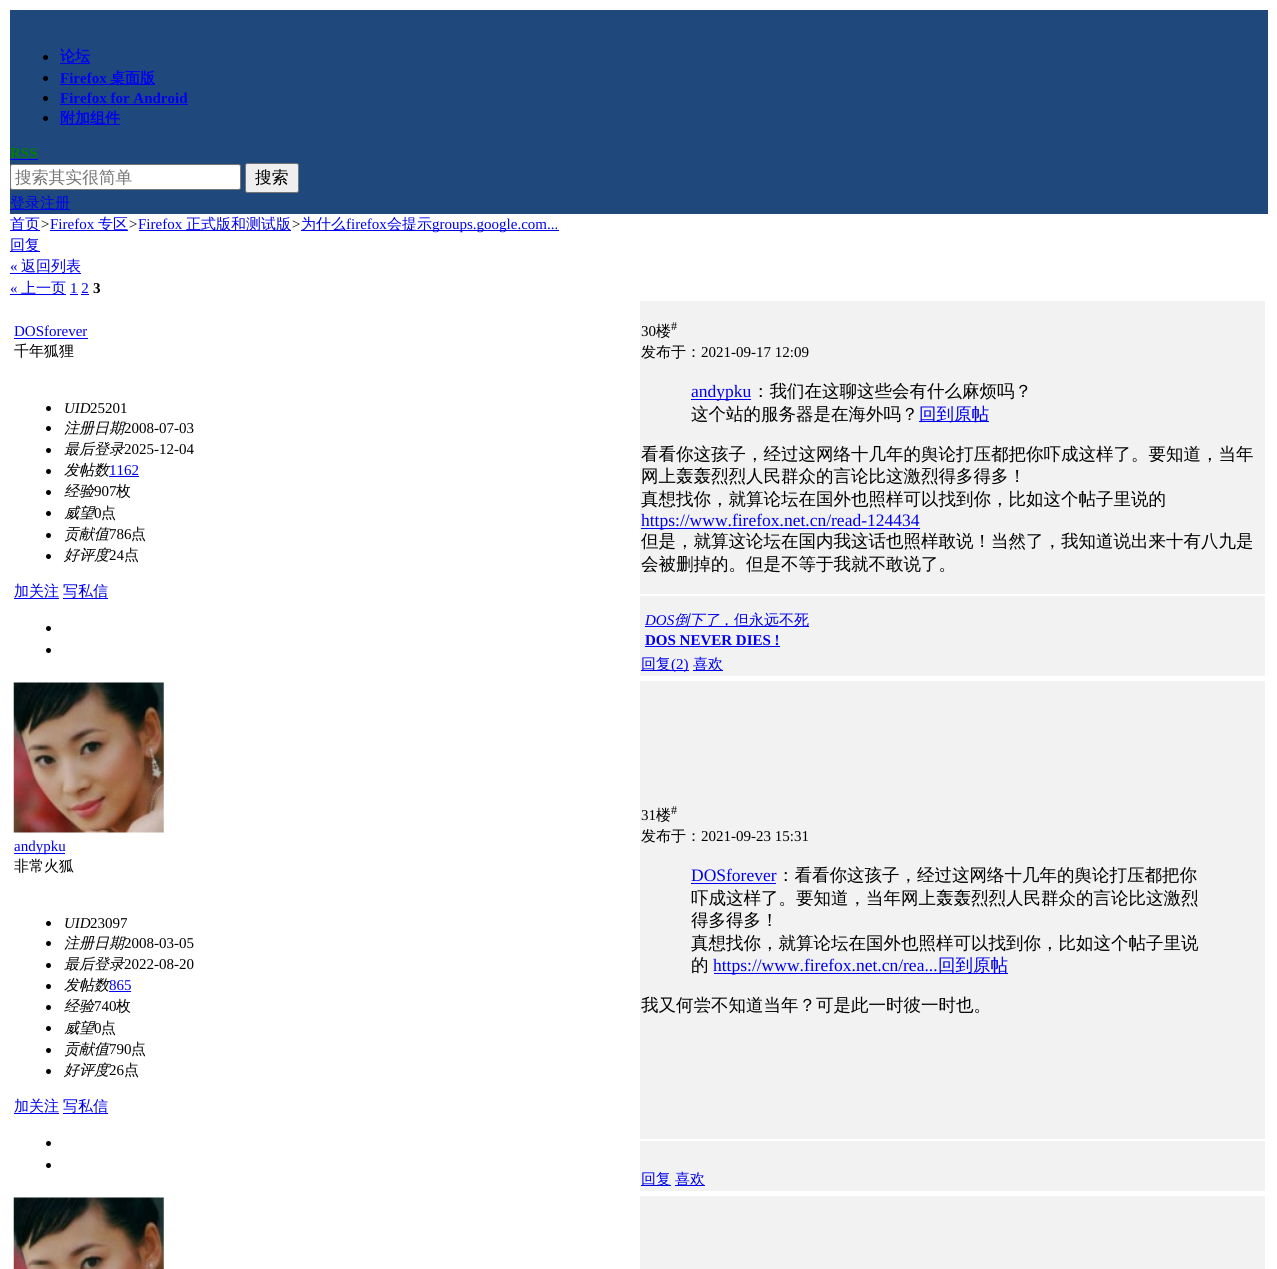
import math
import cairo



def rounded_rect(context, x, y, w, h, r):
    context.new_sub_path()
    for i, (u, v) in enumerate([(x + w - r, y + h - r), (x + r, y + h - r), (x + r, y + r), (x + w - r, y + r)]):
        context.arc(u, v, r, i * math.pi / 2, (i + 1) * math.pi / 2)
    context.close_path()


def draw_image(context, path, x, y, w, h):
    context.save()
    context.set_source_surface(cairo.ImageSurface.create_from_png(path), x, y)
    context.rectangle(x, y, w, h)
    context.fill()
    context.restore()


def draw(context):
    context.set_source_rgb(1, 1, 1)
    context.paint()
    context.set_source_rgb(31 / 255, 73 / 255, 125 / 255)
    context.rectangle(10, 10, 1258, 204)
    context.fill()
    context.set_source_rgb(0, 0, 0)
    context.arc(45.5, 57.5, 2.5, 0, 2 * math.pi)
    context.fill()
    context.set_source_rgb(0, 0, 238 / 255)
    context.rectangle(60, 63, 30, 1)
    context.fill()
    context.set_source_rgb(0, 0, 0)
    context.arc(45.5, 78.5, 2.5, 0, 2 * math.pi)
    context.fill()
    context.set_source_rgb(0, 0, 238 / 255)
    context.rectangle(60, 84, 95, 1)
    context.fill()
    context.set_source_rgb(0, 0, 0)
    context.arc(45.5, 98.5, 2.5, 0, 2 * math.pi)
    context.fill()
    context.set_source_rgb(0, 0, 238 / 255)
    context.rectangle(60, 104, 128, 1)
    context.fill()
    context.set_source_rgb(0, 0, 0)
    context.arc(45.5, 118.5, 2.5, 0, 2 * math.pi)
    context.fill()
    context.set_source_rgb(0, 0, 238 / 255)
    context.rectangle(60, 124, 60, 1)
    context.fill()
    context.rectangle(10, 159, 28, 1)
    context.fill()
    context.set_source_rgb(1, 1, 1)
    rounded_rect(context, 10.5, 164.5, 230, 25, 2)
    context.fill_preserve()
    context.set_source_rgb(118 / 255, 118 / 255, 118 / 255)
    context.set_line_width(1)
    context.stroke()
    context.set_source_rgb(239 / 255, 239 / 255, 239 / 255)
    rounded_rect(context, 245.5, 163.5, 53, 29, 2)
    context.fill_preserve()
    context.set_source_rgb(118 / 255, 118 / 255, 118 / 255)
    context.stroke()
    context.set_source_rgb(0, 0, 238 / 255)
    context.rectangle(10, 209, 60, 1)
    context.fill()
    context.rectangle(10, 230, 30, 1)
    context.fill()
    context.rectangle(50, 230, 78, 1)
    context.fill()
    context.rectangle(139, 230, 152, 1)
    context.fill()
    context.rectangle(301, 230, 258, 1)
    context.fill()
    context.rectangle(10, 251, 30, 1)
    context.fill()
    context.rectangle(10, 273, 71, 1)
    context.fill()
    context.rectangle(10, 294, 56, 1)
    context.fill()
    context.rectangle(70, 294, 8, 1)
    context.fill()
    context.rectangle(81, 294, 8, 1)
    context.fill()
    context.rectangle(14, 338, 74, 1)
    context.fill()
    context.set_source_rgb(0, 0, 0)
    context.arc(48.5, 408.5, 2.5, 0, 2 * math.pi)
    context.fill()
    context.arc(48.5, 428.5, 2.5, 0, 2 * math.pi)
    context.fill()
    context.arc(48.5, 450.5, 2.5, 0, 2 * math.pi)
    context.fill()
    context.arc(48.5, 471.5, 2.5, 0, 2 * math.pi)
    context.fill()
    context.arc(48.5, 492.5, 2.5, 0, 2 * math.pi)
    context.fill()
    context.arc(48.5, 513.5, 2.5, 0, 2 * math.pi)
    context.fill()
    context.arc(48.5, 535.5, 2.5, 0, 2 * math.pi)
    context.fill()
    context.arc(48.5, 556.5, 2.5, 0, 2 * math.pi)
    context.fill()
    context.set_source_rgb(0, 0, 238 / 255)
    context.rectangle(14, 598, 45, 1)
    context.fill()
    context.rectangle(63, 598, 45, 1)
    context.fill()
    context.set_source_rgb(0, 0, 0)
    context.arc(48.5, 628.5, 2.5, 0, 2 * math.pi)
    context.fill()
    context.arc(48.5, 650.5, 2.5, 0, 2 * math.pi)
    context.fill()
    context.set_source_rgb(242 / 255, 242 / 255, 242 / 255)
    context.rectangle(640, 301, 625, 293)
    context.fill()
    context.set_source_rgb(0, 0, 238 / 255)
    context.rectangle(691, 399, 60, 1)
    context.fill()
    context.rectangle(919, 421, 70, 1)
    context.fill()
    context.rectangle(641, 528, 279, 1)
    context.fill()
    context.set_source_rgb(242 / 255, 242 / 255, 242 / 255)
    context.rectangle(640, 596, 625, 80)
    context.fill()
    context.set_source_rgb(0, 0, 238 / 255)
    context.rectangle(645, 626, 74, 1)
    context.fill()
    context.rectangle(719, 626, 90, 1)
    context.fill()
    context.rectangle(645, 646, 135, 1)
    context.fill()
    context.rectangle(641, 670, 48, 1)
    context.fill()
    context.rectangle(693, 670, 30, 1)
    context.fill()
    draw_image(context, "images/1.png", 13, 682, 151, 151)
    context.rectangle(14, 853, 51, 1)
    context.fill()
    context.set_source_rgb(0, 0, 0)
    context.arc(48.5, 923.5, 2.5, 0, 2 * math.pi)
    context.fill()
    context.arc(48.5, 943.5, 2.5, 0, 2 * math.pi)
    context.fill()
    context.arc(48.5, 965.5, 2.5, 0, 2 * math.pi)
    context.fill()
    context.arc(48.5, 986.5, 2.5, 0, 2 * math.pi)
    context.fill()
    context.arc(48.5, 1007.5, 2.5, 0, 2 * math.pi)
    context.fill()
    context.arc(48.5, 1028.5, 2.5, 0, 2 * math.pi)
    context.fill()
    context.arc(48.5, 1050.5, 2.5, 0, 2 * math.pi)
    context.fill()
    context.arc(48.5, 1071.5, 2.5, 0, 2 * math.pi)
    context.fill()
    context.set_source_rgb(0, 0, 238 / 255)
    context.rectangle(14, 1113, 45, 1)
    context.fill()
    context.rectangle(63, 1113, 45, 1)
    context.fill()
    context.set_source_rgb(0, 0, 0)
    context.arc(48.5, 1143.5, 2.5, 0, 2 * math.pi)
    context.fill()
    context.arc(48.5, 1165.5, 2.5, 0, 2 * math.pi)
    context.fill()
    context.set_source_rgb(242 / 255, 242 / 255, 242 / 255)
    context.rectangle(640, 681, 625, 458)
    context.fill()
    context.set_source_rgb(0, 0, 238 / 255)
    context.rectangle(691, 883, 85, 1)
    context.fill()
    context.rectangle(714, 973, 294, 1)
    context.fill()
    context.set_source_rgb(242 / 255, 242 / 255, 242 / 255)
    context.rectangle(640, 1141, 625, 50)
    context.fill()
    context.set_source_rgb(0, 0, 238 / 255)
    context.rectangle(641, 1185, 30, 1)
    context.fill()
    context.rectangle(675, 1185, 30, 1)
    context.fill()
    draw_image(context, "images/2.png", 13, 1197, 151, 72)
    context.set_source_rgb(242 / 255, 242 / 255, 242 / 255)
    context.rectangle(640, 1196, 625, 73)
    context.fill()
    context.select_font_face("WenQuanYi Zen Hei", cairo.FontSlant.NORMAL, cairo.FontWeight.BOLD)
    context.set_font_size(15)
    context.set_source_rgb(0, 0, 238 / 255)
    context.move_to(60, 61)
    context.show_text("论坛")
    context.select_font_face("Liberation Serif", cairo.FontSlant.NORMAL, cairo.FontWeight.BOLD)
    context.move_to(60, 83)
    context.show_text("Firefox")
    context.select_font_face("WenQuanYi Zen Hei", cairo.FontSlant.NORMAL, cairo.FontWeight.BOLD)
    context.move_to(110, 83)
    context.show_text("桌面版")
    context.select_font_face("Liberation Serif", cairo.FontSlant.NORMAL, cairo.FontWeight.BOLD)
    context.move_to(60, 103)
    context.show_text("Firefox for Android")
    context.select_font_face("WenQuanYi Zen Hei", cairo.FontSlant.NORMAL, cairo.FontWeight.BOLD)
    context.move_to(60, 123)
    context.show_text("附加组件")
    context.select_font_face("Liberation Serif", cairo.FontSlant.NORMAL, cairo.FontWeight.BOLD)
    context.set_source_rgb(0, 128 / 255, 0)
    context.move_to(10, 158)
    context.show_text("RSS")
    context.select_font_face("WenQuanYi Zen Hei Medium")
    context.set_font_size(16.75)
    context.set_source_rgb(117 / 255, 117 / 255, 117 / 255)
    context.move_to(15, 183)
    context.show_text("搜索其实很简单")
    context.set_source_rgb(0, 0, 0)
    context.move_to(255, 183)
    context.show_text("搜索")
    context.set_font_size(15)
    context.set_source_rgb(0, 0, 238 / 255)
    context.move_to(10, 208)
    context.show_text("登录注册")
    context.move_to(10, 229)
    context.show_text("首页")
    context.select_font_face("Liberation Serif", cairo.FontSlant.ITALIC)
    context.set_source_rgb(0, 0, 0)
    context.move_to(40, 229)
    context.show_text(">")
    context.select_font_face("Liberation Serif")
    context.set_source_rgb(0, 0, 238 / 255)
    context.move_to(50, 229)
    context.show_text("Firefox")
    context.select_font_face("WenQuanYi Zen Hei Medium")
    context.move_to(98, 229)
    context.show_text("专区")
    context.select_font_face("Liberation Serif", cairo.FontSlant.ITALIC)
    context.set_source_rgb(0, 0, 0)
    context.move_to(128, 229)
    context.show_text(">")
    context.select_font_face("Liberation Serif")
    context.set_source_rgb(0, 0, 238 / 255)
    context.move_to(138, 229)
    context.show_text("Firefox")
    context.select_font_face("WenQuanYi Zen Hei Medium")
    context.move_to(186, 229)
    context.show_text("正式版和测试版")
    context.select_font_face("Liberation Serif", cairo.FontSlant.ITALIC)
    context.set_source_rgb(0, 0, 0)
    context.move_to(291, 229)
    context.show_text(">")
    context.select_font_face("WenQuanYi Zen Hei Medium")
    context.set_source_rgb(0, 0, 238 / 255)
    context.move_to(301, 229)
    context.show_text("为什么")
    context.select_font_face("Liberation Serif")
    context.move_to(346, 229)
    context.show_text("firefox")
    context.select_font_face("WenQuanYi Zen Hei Medium")
    context.move_to(387, 229)
    context.show_text("会提示")
    context.select_font_face("Liberation Serif")
    context.move_to(432, 229)
    context.show_text("groups.google.com...")
    context.select_font_face("WenQuanYi Zen Hei Medium")
    context.move_to(10, 250)
    context.show_text("回复")
    context.select_font_face("Liberation Serif")
    context.move_to(10, 271)
    context.show_text("«")
    context.select_font_face("WenQuanYi Zen Hei Medium")
    context.move_to(21, 271)
    context.show_text("返回列表")
    context.select_font_face("Liberation Serif")
    context.move_to(10, 293)
    context.show_text("«")
    context.select_font_face("WenQuanYi Zen Hei Medium")
    context.move_to(21, 293)
    context.show_text("上一页")
    context.select_font_face("Liberation Serif")
    context.move_to(70, 293)
    context.show_text("1 2")
    context.select_font_face("Liberation Serif", cairo.FontSlant.NORMAL, cairo.FontWeight.BOLD)
    context.set_source_rgb(0, 0, 0)
    context.move_to(93, 293)
    context.show_text("3")
    context.select_font_face("Liberation Serif")
    context.set_source_rgb(0, 0, 238 / 255)
    context.move_to(14, 336)
    context.show_text("DOSforever")
    context.select_font_face("WenQuanYi Zen Hei Medium")
    context.set_source_rgb(0, 0, 0)
    context.move_to(14, 356)
    context.show_text("千年狐狸")
    context.select_font_face("Liberation Serif", cairo.FontSlant.ITALIC)
    context.move_to(64, 413)
    context.show_text("UID")
    context.select_font_face("Liberation Serif")
    context.move_to(90, 413)
    context.show_text("25201")
    context.select_font_face("WenQuanYi Zen Hei Medium", cairo.FontSlant.ITALIC)
    context.move_to(64, 433)
    context.show_text("注册日期")
    context.select_font_face("Liberation Serif")
    context.move_to(124, 433)
    context.show_text("2008-07-03")
    context.select_font_face("WenQuanYi Zen Hei Medium", cairo.FontSlant.ITALIC)
    context.move_to(64, 454)
    context.show_text("最后登录")
    context.select_font_face("Liberation Serif")
    context.move_to(124, 454)
    context.show_text("2025-12-04")
    context.select_font_face("WenQuanYi Zen Hei Medium", cairo.FontSlant.ITALIC)
    context.move_to(64, 475)
    context.show_text("发帖数")
    context.select_font_face("Liberation Serif")
    context.set_source_rgb(0, 0, 238 / 255)
    context.move_to(109, 475)
    context.show_text("1162")
    context.rectangle(109, 476, 30, 1)
    context.fill()
    context.select_font_face("WenQuanYi Zen Hei Medium", cairo.FontSlant.ITALIC)
    context.set_source_rgb(0, 0, 0)
    context.move_to(64, 496)
    context.show_text("经验")
    context.select_font_face("Liberation Serif")
    context.move_to(94, 496)
    context.show_text("907")
    context.select_font_face("WenQuanYi Zen Hei Medium")
    context.move_to(116, 496)
    context.show_text("枚")
    context.select_font_face("WenQuanYi Zen Hei Medium", cairo.FontSlant.ITALIC)
    context.move_to(64, 518)
    context.show_text("威望")
    context.select_font_face("Liberation Serif")
    context.move_to(94, 518)
    context.show_text("0")
    context.select_font_face("WenQuanYi Zen Hei Medium")
    context.move_to(101, 518)
    context.show_text("点")
    context.select_font_face("WenQuanYi Zen Hei Medium", cairo.FontSlant.ITALIC)
    context.move_to(64, 539)
    context.show_text("贡献值")
    context.select_font_face("Liberation Serif")
    context.move_to(109, 539)
    context.show_text("786")
    context.select_font_face("WenQuanYi Zen Hei Medium")
    context.move_to(131, 539)
    context.show_text("点")
    context.select_font_face("WenQuanYi Zen Hei Medium", cairo.FontSlant.ITALIC)
    context.move_to(64, 560)
    context.show_text("好评度")
    context.select_font_face("Liberation Serif")
    context.move_to(109, 560)
    context.show_text("24")
    context.select_font_face("WenQuanYi Zen Hei Medium")
    context.move_to(124, 560)
    context.show_text("点")
    context.set_source_rgb(0, 0, 238 / 255)
    context.move_to(14, 596)
    context.show_text("加关注")
    context.move_to(63, 596)
    context.show_text("写私信")
    context.select_font_face("Liberation Serif")
    context.set_source_rgb(0, 0, 0)
    context.move_to(641, 336)
    context.show_text("30")
    context.select_font_face("WenQuanYi Zen Hei Medium")
    context.move_to(656, 336)
    context.show_text("楼")
    context.select_font_face("Liberation Serif")
    context.set_font_size(12)
    context.move_to(671, 330)
    context.show_text("#")
    context.select_font_face("WenQuanYi Zen Hei Medium")
    context.set_font_size(15)
    context.move_to(641, 357)
    context.show_text("发布于：")
    context.select_font_face("Liberation Serif")
    context.move_to(701, 357)
    context.show_text("2021-09-17 12:09")
    context.set_font_size(17.5)
    context.set_source_rgb(0, 0, 238 / 255)
    context.move_to(691, 397)
    context.show_text("andypku")
    context.select_font_face("WenQuanYi Zen Hei Medium")
    context.set_source_rgb(0, 0, 0)
    context.move_to(752, 397)
    context.show_text("：我们在这聊这些会有什么麻烦吗？")
    context.move_to(691, 420)
    context.show_text("这个站的服务器是在海外吗？")
    context.set_source_rgb(0, 0, 238 / 255)
    context.move_to(919, 420)
    context.show_text("回到原帖")
    context.set_source_rgb(0, 0, 0)
    context.move_to(641, 460)
    context.show_text("看看你这孩子，经过这网络十几年的舆论打压都把你吓成这样了。要知道，当年")
    context.move_to(641, 482)
    context.show_text("网上轰轰烈烈人民群众的言论比这激烈得多得多！")
    context.move_to(641, 505)
    context.show_text("真想找你，就算论坛在国外也照样可以找到你，比如这个帖子里说的")
    context.select_font_face("Liberation Serif")
    context.set_source_rgb(0, 0, 238 / 255)
    context.move_to(641, 526)
    context.show_text("https://www.firefox.net.cn/read-124434")
    context.select_font_face("WenQuanYi Zen Hei Medium")
    context.set_source_rgb(0, 0, 0)
    context.move_to(641, 547)
    context.show_text("但是，就算这论坛在国内我这话也照样敢说！当然了，我知道说出来十有八九是")
    context.move_to(641, 570)
    context.show_text("会被删掉的。但是不等于我就不敢说了。")
    context.select_font_face("Liberation Serif", cairo.FontSlant.ITALIC)
    context.set_font_size(15)
    context.set_source_rgb(0, 0, 238 / 255)
    context.move_to(645, 625)
    context.show_text("DOS")
    context.select_font_face("WenQuanYi Zen Hei Medium", cairo.FontSlant.ITALIC)
    context.move_to(674, 625)
    context.show_text("倒下了")
    context.select_font_face("WenQuanYi Zen Hei Medium")
    context.move_to(719, 625)
    context.show_text("，但永远不死")
    context.select_font_face("Liberation Serif", cairo.FontSlant.NORMAL, cairo.FontWeight.BOLD)
    context.move_to(645, 645)
    context.show_text("DOS NEVER DIES !")
    context.select_font_face("WenQuanYi Zen Hei Medium")
    context.move_to(641, 669)
    context.show_text("回复")
    context.select_font_face("Liberation Serif")
    context.move_to(671, 669)
    context.show_text("(2)")
    context.select_font_face("WenQuanYi Zen Hei Medium")
    context.move_to(693, 669)
    context.show_text("喜欢")
    context.select_font_face("Liberation Serif")
    context.move_to(14, 851)
    context.show_text("andypku")
    context.select_font_face("WenQuanYi Zen Hei Medium")
    context.set_source_rgb(0, 0, 0)
    context.move_to(14, 871)
    context.show_text("非常火狐")
    context.select_font_face("Liberation Serif", cairo.FontSlant.ITALIC)
    context.move_to(64, 928)
    context.show_text("UID")
    context.select_font_face("Liberation Serif")
    context.move_to(90, 928)
    context.show_text("23097")
    context.select_font_face("WenQuanYi Zen Hei Medium", cairo.FontSlant.ITALIC)
    context.move_to(64, 948)
    context.show_text("注册日期")
    context.select_font_face("Liberation Serif")
    context.move_to(124, 948)
    context.show_text("2008-03-05")
    context.select_font_face("WenQuanYi Zen Hei Medium", cairo.FontSlant.ITALIC)
    context.move_to(64, 969)
    context.show_text("最后登录")
    context.select_font_face("Liberation Serif")
    context.move_to(124, 969)
    context.show_text("2022-08-20")
    context.select_font_face("WenQuanYi Zen Hei Medium", cairo.FontSlant.ITALIC)
    context.move_to(64, 990)
    context.show_text("发帖数")
    context.select_font_face("Liberation Serif")
    context.set_source_rgb(0, 0, 238 / 255)
    context.move_to(109, 990)
    context.show_text("865")
    context.rectangle(109, 991, 22, 1)
    context.fill()
    context.select_font_face("WenQuanYi Zen Hei Medium", cairo.FontSlant.ITALIC)
    context.set_source_rgb(0, 0, 0)
    context.move_to(64, 1011)
    context.show_text("经验")
    context.select_font_face("Liberation Serif")
    context.move_to(94, 1011)
    context.show_text("740")
    context.select_font_face("WenQuanYi Zen Hei Medium")
    context.move_to(116, 1011)
    context.show_text("枚")
    context.select_font_face("WenQuanYi Zen Hei Medium", cairo.FontSlant.ITALIC)
    context.move_to(64, 1033)
    context.show_text("威望")
    context.select_font_face("Liberation Serif")
    context.move_to(94, 1033)
    context.show_text("0")
    context.select_font_face("WenQuanYi Zen Hei Medium")
    context.move_to(101, 1033)
    context.show_text("点")
    context.select_font_face("WenQuanYi Zen Hei Medium", cairo.FontSlant.ITALIC)
    context.move_to(64, 1054)
    context.show_text("贡献值")
    context.select_font_face("Liberation Serif")
    context.move_to(109, 1054)
    context.show_text("790")
    context.select_font_face("WenQuanYi Zen Hei Medium")
    context.move_to(131, 1054)
    context.show_text("点")
    context.select_font_face("WenQuanYi Zen Hei Medium", cairo.FontSlant.ITALIC)
    context.move_to(64, 1075)
    context.show_text("好评度")
    context.select_font_face("Liberation Serif")
    context.move_to(109, 1075)
    context.show_text("26")
    context.select_font_face("WenQuanYi Zen Hei Medium")
    context.move_to(124, 1075)
    context.show_text("点")
    context.set_source_rgb(0, 0, 238 / 255)
    context.move_to(14, 1111)
    context.show_text("加关注")
    context.move_to(63, 1111)
    context.show_text("写私信")
    context.select_font_face("Liberation Serif")
    context.set_source_rgb(0, 0, 0)
    context.move_to(641, 820)
    context.show_text("31")
    context.select_font_face("WenQuanYi Zen Hei Medium")
    context.move_to(656, 820)
    context.show_text("楼")
    context.select_font_face("Liberation Serif")
    context.set_font_size(12)
    context.move_to(671, 814)
    context.show_text("#")
    context.select_font_face("WenQuanYi Zen Hei Medium")
    context.set_font_size(15)
    context.move_to(641, 841)
    context.show_text("发布于：")
    context.select_font_face("Liberation Serif")
    context.move_to(701, 841)
    context.show_text("2021-09-23 15:31")
    context.set_font_size(17.5)
    context.set_source_rgb(0, 0, 238 / 255)
    context.move_to(691, 881)
    context.show_text("DOSforever")
    context.select_font_face("WenQuanYi Zen Hei Medium")
    context.set_source_rgb(0, 0, 0)
    context.move_to(777, 881)
    context.show_text("：看看你这孩子，经过这网络十几年的舆论打压都把你")
    context.move_to(691, 904)
    context.show_text("吓成这样了。要知道，当年网上轰轰烈烈人民群众的言论比这激烈")
    context.move_to(691, 926)
    context.show_text("得多得多！")
    context.move_to(691, 949)
    context.show_text("真想找你，就算论坛在国外也照样可以找到你，比如这个帖子里说")
    context.move_to(691, 971)
    context.show_text("的")
    context.select_font_face("Liberation Serif")
    context.set_source_rgb(0, 0, 238 / 255)
    context.move_to(713, 971)
    context.show_text("https://www.firefox.net.cn/rea...")
    context.select_font_face("WenQuanYi Zen Hei Medium")
    context.move_to(938, 971)
    context.show_text("回到原帖")
    context.set_source_rgb(0, 0, 0)
    context.move_to(641, 1011)
    context.show_text("我又何尝不知道当年？可是此一时彼一时也。")
    context.set_font_size(15)
    context.set_source_rgb(0, 0, 238 / 255)
    context.move_to(641, 1184)
    context.show_text("回复")
    context.move_to(675, 1184)
    context.show_text("喜欢")


surface = cairo.ImageSurface(cairo.Format.RGB24, 1277, 1269)
context = cairo.Context(surface)
options = cairo.FontOptions()
options.set_hint_metrics(cairo.HintMetrics.OFF)
options.set_hint_style(cairo.HintStyle.NONE)
context.set_font_options(options)
context.set_miter_limit(4)
draw(context)
surface.write_to_png("out.png")
